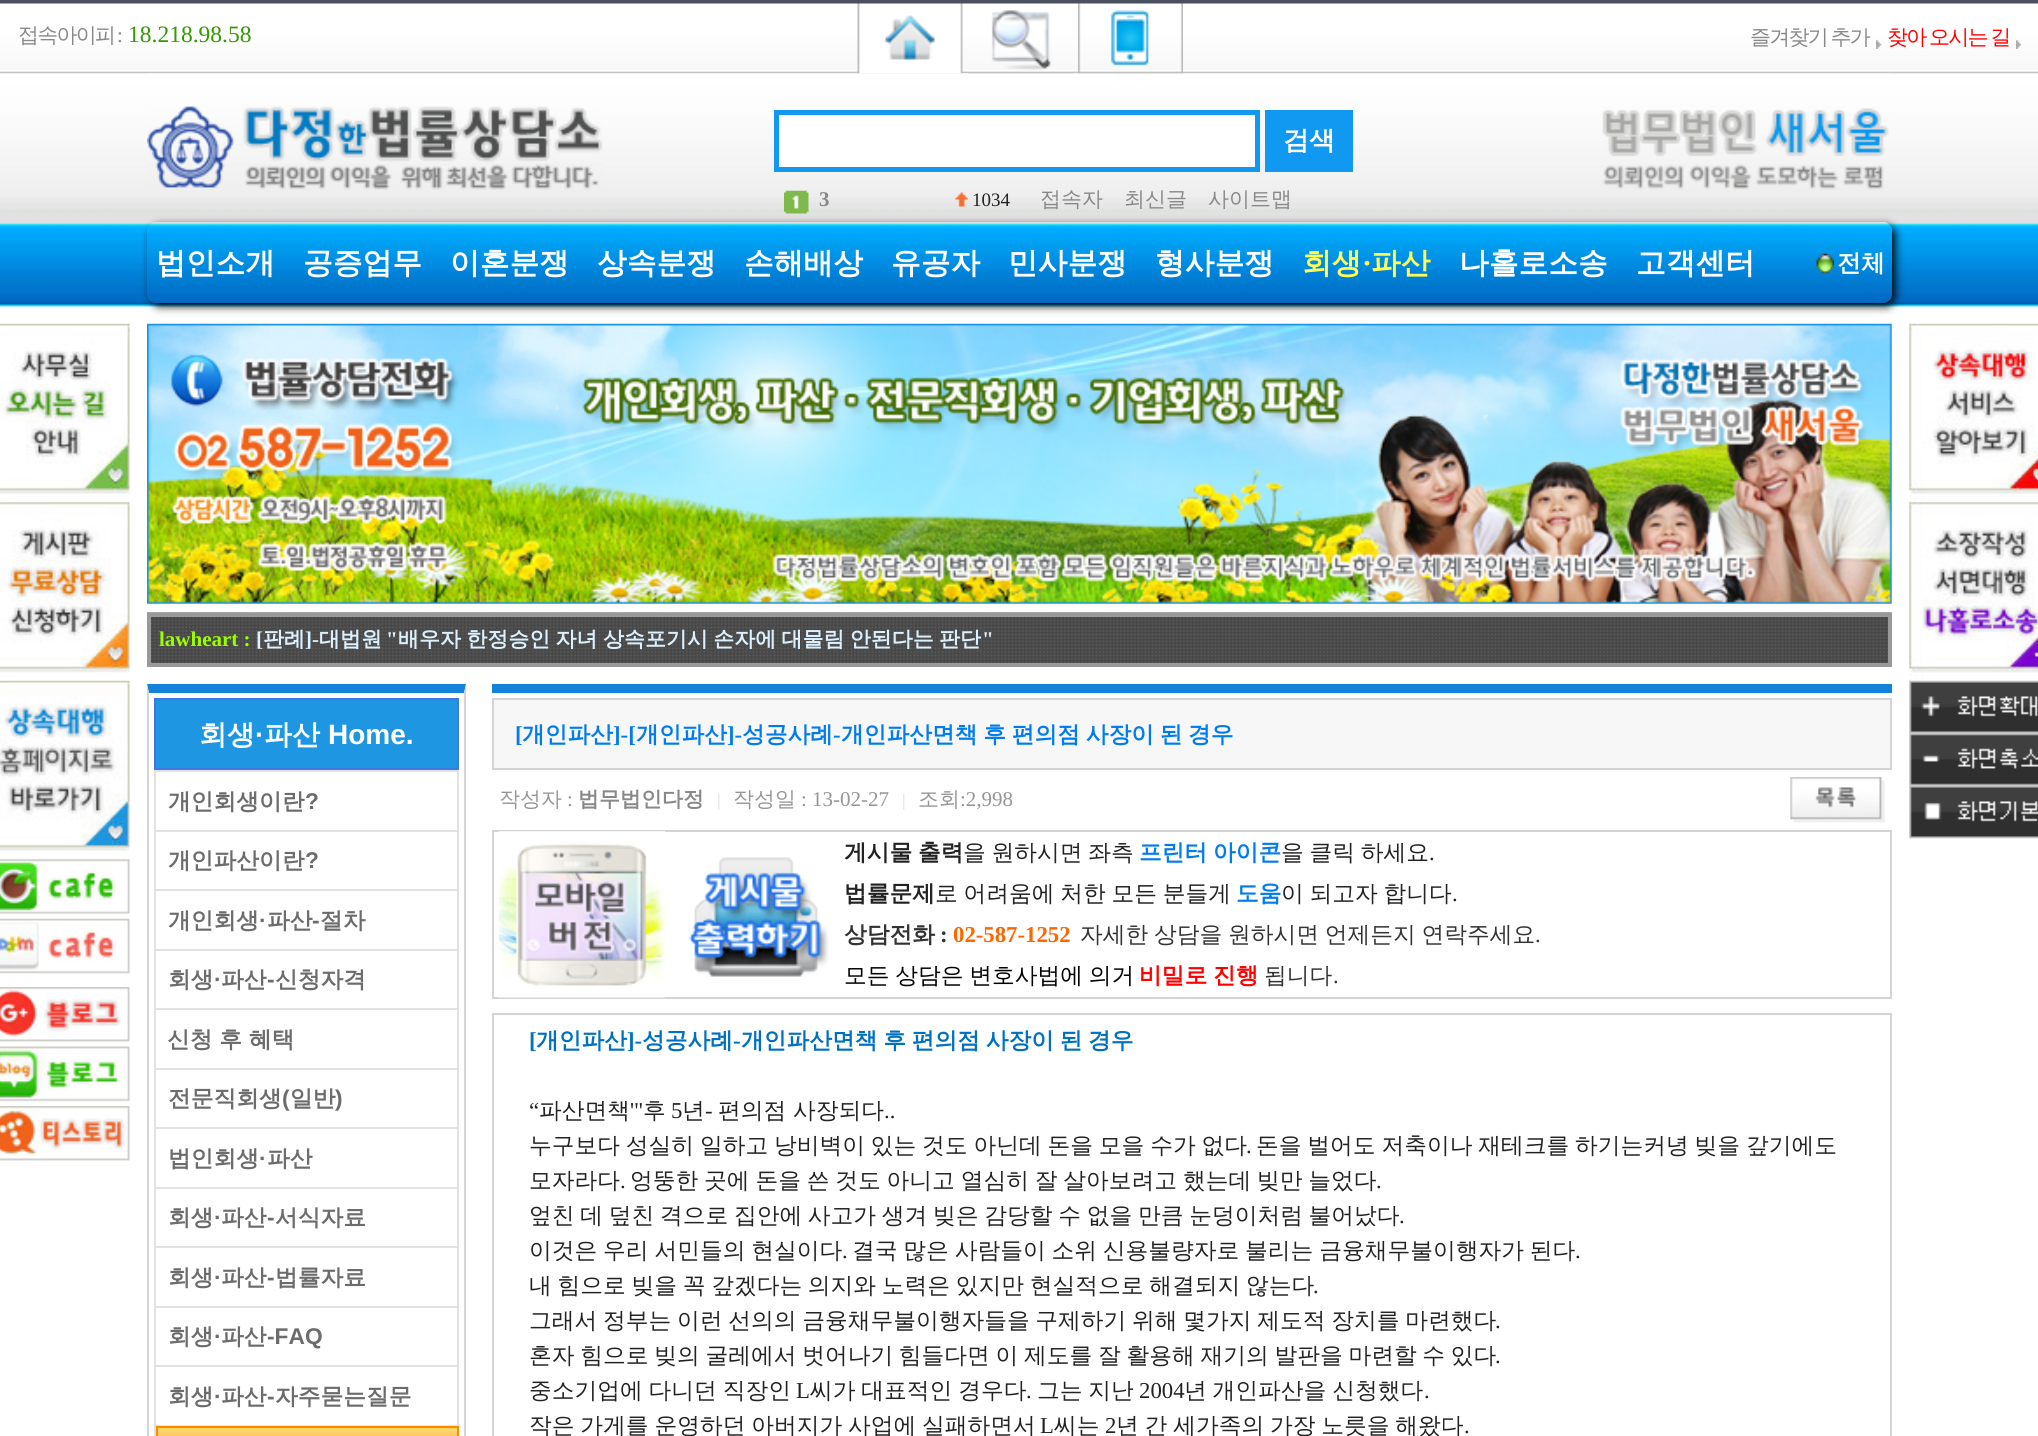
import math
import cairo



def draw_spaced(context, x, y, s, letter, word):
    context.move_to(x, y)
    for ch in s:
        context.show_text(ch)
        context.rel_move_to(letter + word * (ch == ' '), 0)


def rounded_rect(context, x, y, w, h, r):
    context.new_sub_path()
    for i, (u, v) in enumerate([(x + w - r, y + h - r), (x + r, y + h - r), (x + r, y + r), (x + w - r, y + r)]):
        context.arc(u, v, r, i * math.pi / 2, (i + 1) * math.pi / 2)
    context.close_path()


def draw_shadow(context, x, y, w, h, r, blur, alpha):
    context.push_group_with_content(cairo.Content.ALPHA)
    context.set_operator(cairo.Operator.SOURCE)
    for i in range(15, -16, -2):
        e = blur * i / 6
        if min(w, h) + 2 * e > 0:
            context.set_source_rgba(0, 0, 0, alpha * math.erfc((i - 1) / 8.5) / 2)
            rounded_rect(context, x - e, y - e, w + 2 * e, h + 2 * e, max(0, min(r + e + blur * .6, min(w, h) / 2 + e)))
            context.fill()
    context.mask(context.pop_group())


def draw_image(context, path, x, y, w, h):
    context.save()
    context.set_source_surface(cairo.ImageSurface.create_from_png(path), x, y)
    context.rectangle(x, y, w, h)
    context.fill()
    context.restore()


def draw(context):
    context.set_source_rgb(1, 1, 1)
    context.paint()
    draw_image(context, "images/1.png", 0, 0, 2038, 74)
    draw_image(context, "images/2.png", 147, 73, 1745, 1)
    draw_image(context, "images/16.png", 0, 73, 2038, 234)
    draw_image(context, "images/17.png", 147, 73, 1745, 1)
    draw_image(context, "images/3.png", 857, 3, 106, 71)
    draw_image(context, "images/4.png", 968, 10, 105, 64)
    draw_image(context, "images/5.png", 1078, 3, 105, 71)
    draw_image(context, "images/6.png", 1876, 40, 6, 9)
    draw_image(context, "images/7.png", 2016, 40, 6, 9)
    draw_image(context, "images/8.png", 0, 323, 130, 171)
    draw_image(context, "images/9.png", 0, 502, 130, 171)
    draw_image(context, "images/10.png", 0, 680, 130, 171)
    draw_image(context, "images/11.png", 0, 859, 130, 55)
    draw_image(context, "images/12.png", 0, 918, 130, 56)
    draw_image(context, "images/13.png", 0, 987, 130, 55)
    draw_image(context, "images/14.png", 0, 1046, 130, 57)
    draw_image(context, "images/15.png", 0, 1106, 130, 55)
    draw_image(context, "images/18.png", 147, 106, 456, 84)
    context.set_source_rgb(1, 1, 1)
    context.rectangle(776.5, 112.5, 481, 57)
    context.fill_preserve()
    context.set_source_rgb(17 / 255, 152 / 255, 241 / 255)
    context.set_line_width(5)
    context.stroke()
    context.rectangle(1265, 110, 88, 62)
    context.fill()
    context.save()
    context.set_fill_rule(cairo.FillRule.EVEN_ODD)
    context.new_path()
    context.move_to(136, 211)
    context.line_to(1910, 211)
    context.line_to(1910, 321)
    context.line_to(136, 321)
    context.close_path()
    context.move_to(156, 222)
    context.line_to(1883, 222)
    context.curve_to(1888, 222, 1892, 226, 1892, 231)
    context.line_to(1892, 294)
    context.curve_to(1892, 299, 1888, 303, 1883, 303)
    context.line_to(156, 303)
    context.curve_to(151, 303, 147, 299, 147, 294)
    context.line_to(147, 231)
    context.curve_to(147, 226, 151, 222, 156, 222)
    context.close_path()
    context.clip()
    context.set_source_rgb(0, 0, 0)
    draw_shadow(context, 151, 226, 1744, 80, 9, 4.5, 1)
    context.restore()
    draw_image(context, "images/19.png", 784, 190, 25, 24)
    draw_image(context, "images/20.png", 955, 192, 13, 15)
    draw_image(context, "images/21.png", 1602, 108, 287, 82)
    draw_image(context, "images/22.png", 1816, 253, 18, 21)
    draw_image(context, "images/23.png", 147, 323, 1745, 281)
    draw_image(context, "images/24.png", 147, 612, 1745, 51)
    context.rectangle(149, 615, 1741, 50)
    context.set_source_rgb(153 / 255, 153 / 255, 153 / 255)
    context.set_line_width(4)
    context.stroke()
    context.set_source_rgb(19 / 255, 131 / 255, 217 / 255)
    context.new_path()
    context.move_to(147, 684)
    context.line_to(466, 684)
    context.line_to(464, 693)
    context.line_to(149, 693)
    context.close_path()
    context.fill()
    context.set_source_rgb(214 / 255, 211 / 255, 214 / 255)
    context.new_path()
    context.move_to(466, 684)
    context.line_to(466, 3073)
    context.line_to(464, 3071)
    context.line_to(464, 693)
    context.close_path()
    context.fill()
    context.new_path()
    context.move_to(147, 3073)
    context.line_to(147, 684)
    context.line_to(149, 693)
    context.line_to(149, 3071)
    context.close_path()
    context.fill()
    context.set_source_rgb(30 / 255, 150 / 255, 226 / 255)
    context.rectangle(155, 699, 303, 70)
    context.fill_preserve()
    context.set_source_rgb(63 / 255, 118 / 255, 234 / 255)
    context.set_line_width(2)
    context.stroke()
    context.set_source_rgb(226 / 255, 226 / 255, 226 / 255)
    context.rectangle(154, 770, 305, 2)
    context.fill()
    context.rectangle(457, 770, 2, 60)
    context.fill()
    context.rectangle(154, 770, 2, 60)
    context.fill()
    context.rectangle(154, 830, 305, 2)
    context.fill()
    context.rectangle(457, 830, 2, 59)
    context.fill()
    context.rectangle(154, 830, 2, 59)
    context.fill()
    context.rectangle(154, 889, 305, 2)
    context.fill()
    context.rectangle(457, 889, 2, 60)
    context.fill()
    context.rectangle(154, 889, 2, 60)
    context.fill()
    context.rectangle(154, 949, 305, 2)
    context.fill()
    context.rectangle(457, 949, 2, 59)
    context.fill()
    context.rectangle(154, 949, 2, 59)
    context.fill()
    context.rectangle(154, 1008, 305, 2)
    context.fill()
    context.rectangle(457, 1008, 2, 60)
    context.fill()
    context.rectangle(154, 1008, 2, 60)
    context.fill()
    context.rectangle(154, 1068, 305, 2)
    context.fill()
    context.rectangle(457, 1068, 2, 59)
    context.fill()
    context.rectangle(154, 1068, 2, 59)
    context.fill()
    context.rectangle(154, 1127, 305, 2)
    context.fill()
    context.rectangle(457, 1127, 2, 60)
    context.fill()
    context.rectangle(154, 1127, 2, 60)
    context.fill()
    context.rectangle(154, 1187, 305, 2)
    context.fill()
    context.rectangle(457, 1187, 2, 59)
    context.fill()
    context.rectangle(154, 1187, 2, 59)
    context.fill()
    context.rectangle(154, 1246, 305, 2)
    context.fill()
    context.rectangle(457, 1246, 2, 60)
    context.fill()
    context.rectangle(154, 1246, 2, 60)
    context.fill()
    context.rectangle(154, 1306, 305, 2)
    context.fill()
    context.rectangle(457, 1306, 2, 59)
    context.fill()
    context.rectangle(154, 1306, 2, 59)
    context.fill()
    context.rectangle(154, 1365, 305, 2)
    context.fill()
    context.rectangle(457, 1365, 2, 60)
    context.fill()
    context.rectangle(154, 1365, 2, 60)
    context.fill()
    context.rectangle(154, 1425, 305, 1)
    context.fill()
    context.rectangle(154, 1425, 2, 11)
    context.fill()
    draw_image(context, "images/25.png", 155, 1426, 302, 10)
    context.rectangle(157, 1427, 301, 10)
    context.set_source_rgb(254 / 255, 138 / 255, 1 / 255)
    context.stroke()
    context.set_source_rgb(19 / 255, 131 / 255, 217 / 255)
    context.rectangle(492, 684, 1400, 9)
    context.fill()
    context.set_source_rgb(247 / 255, 247 / 255, 247 / 255)
    context.rectangle(493, 699, 1398, 70)
    context.fill_preserve()
    context.set_source_rgb(214 / 255, 211 / 255, 214 / 255)
    context.stroke()
    draw_image(context, "images/26.png", 1790, 777, 95, 46)
    context.rectangle(493, 831, 1398, 167)
    context.stroke()
    draw_image(context, "images/27.png", 498, 831, 167, 167)
    draw_image(context, "images/28.png", 689, 857, 140, 120)
    context.rectangle(493, 1014, 1398, 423)
    context.stroke()
    draw_image(context, "images/29.png", 1909, 323, 129, 179)
    draw_image(context, "images/30.png", 1909, 502, 129, 179)
    draw_image(context, "images/31.png", 1909, 680, 129, 54)
    draw_image(context, "images/32.png", 1909, 733, 129, 53)
    draw_image(context, "images/33.png", 1909, 785, 129, 54)
    context.select_font_face("WenQuanYi Zen Hei Medium")
    context.set_font_size(21)
    context.set_source_rgb(136 / 255, 136 / 255, 136 / 255)
    draw_spaced(context, 18, 42, "접속아이피", -1.75, 0)
    context.select_font_face("Liberation Serif")
    draw_spaced(context, 117, 42, ":", -1.75, 0)
    context.set_font_size(23.5)
    context.set_source_rgb(51 / 255, 153 / 255, 0)
    context.move_to(128, 42)
    context.show_text("18.218.98.58")
    context.select_font_face("WenQuanYi Zen Hei Medium")
    context.set_font_size(21)
    context.set_source_rgb(136 / 255, 136 / 255, 136 / 255)
    draw_spaced(context, 1750, 44, "즐겨찾기 추가", -1.75, -1)
    context.set_source_rgb(1, 0, 0)
    draw_spaced(context, 1887, 44, "찾아 오시는 길", -1.75, -1)
    context.select_font_face("WenQuanYi Zen Hei", cairo.FontSlant.NORMAL, cairo.FontWeight.BOLD)
    context.set_font_size(26)
    context.set_source_rgb(1, 1, 1)
    context.move_to(1283, 149)
    context.show_text("검색")
    context.select_font_face("Liberation Serif", cairo.FontSlant.NORMAL, cairo.FontWeight.BOLD)
    context.set_font_size(21)
    context.set_source_rgb(136 / 255, 136 / 255, 136 / 255)
    context.move_to(819, 206)
    context.show_text("3")
    context.select_font_face("Liberation Serif")
    context.set_font_size(19)
    context.set_source_rgb(34 / 255, 34 / 255, 34 / 255)
    context.move_to(972, 206)
    context.show_text("1034")
    context.select_font_face("WenQuanYi Zen Hei Medium")
    context.set_font_size(21)
    context.set_source_rgb(136 / 255, 136 / 255, 136 / 255)
    context.move_to(1040, 206)
    context.show_text("접속자")
    context.move_to(1124, 206)
    context.show_text("최신글")
    context.move_to(1208, 206)
    context.show_text("사이트맵")
    context.select_font_face("WenQuanYi Zen Hei", cairo.FontSlant.NORMAL, cairo.FontWeight.BOLD)
    context.set_font_size(29.75)
    context.set_source_rgb(1, 1, 1)
    context.move_to(156, 273)
    context.show_text("법인소개")
    context.move_to(303, 273)
    context.show_text("공증업무")
    context.move_to(450, 273)
    context.show_text("이혼분쟁")
    context.move_to(597, 273)
    context.show_text("상속분쟁")
    context.move_to(744, 273)
    context.show_text("손해배상")
    context.move_to(891, 273)
    context.show_text("유공자")
    context.move_to(1008, 273)
    context.show_text("민사분쟁")
    context.move_to(1155, 273)
    context.show_text("형사분쟁")
    context.set_source_rgb(1, 1, 87 / 255)
    context.move_to(1302, 273)
    context.show_text("회생")
    context.select_font_face("Liberation Serif", cairo.FontSlant.NORMAL, cairo.FontWeight.BOLD)
    context.move_to(1362, 273)
    context.show_text("·")
    context.select_font_face("WenQuanYi Zen Hei", cairo.FontSlant.NORMAL, cairo.FontWeight.BOLD)
    context.move_to(1371, 273)
    context.show_text("파산")
    context.set_source_rgb(1, 1, 1)
    context.move_to(1459, 273)
    context.show_text("나홀로소송")
    context.move_to(1636, 273)
    context.show_text("고객센터")
    context.set_font_size(24)
    context.move_to(1837, 271)
    context.show_text("전체")
    context.select_font_face("Liberation Serif", cairo.FontSlant.NORMAL, cairo.FontWeight.BOLD)
    context.set_font_size(21)
    context.set_source_rgb(153 / 255, 1, 0)
    context.move_to(159, 646)
    context.show_text("lawheart :")
    context.set_source_rgb(220 / 255, 241 / 255, 254 / 255)
    context.move_to(256, 646)
    context.show_text("[")
    context.select_font_face("WenQuanYi Zen Hei", cairo.FontSlant.NORMAL, cairo.FontWeight.BOLD)
    context.move_to(263, 646)
    context.show_text("판례")
    context.select_font_face("Liberation Serif", cairo.FontSlant.NORMAL, cairo.FontWeight.BOLD)
    context.move_to(305, 646)
    context.show_text("]-")
    context.select_font_face("WenQuanYi Zen Hei", cairo.FontSlant.NORMAL, cairo.FontWeight.BOLD)
    context.move_to(319, 646)
    context.show_text("대법원")
    context.select_font_face("Liberation Serif", cairo.FontSlant.NORMAL, cairo.FontWeight.BOLD)
    context.move_to(386, 646)
    context.show_text("\"")
    context.select_font_face("WenQuanYi Zen Hei", cairo.FontSlant.NORMAL, cairo.FontWeight.BOLD)
    draw_spaced(context, 398, 646, "배우자 한정승인 자녀 상속포기시 손자에 대물림 안된다는 판단", 0, -1)
    context.select_font_face("Liberation Serif", cairo.FontSlant.NORMAL, cairo.FontWeight.BOLD)
    context.move_to(982, 646)
    context.show_text("\"")
    context.select_font_face("WenQuanYi Zen Hei", cairo.FontSlant.NORMAL, cairo.FontWeight.BOLD)
    context.set_font_size(28)
    context.set_source_rgb(1, 1, 1)
    context.move_to(199, 744)
    context.show_text("회생")
    context.select_font_face("Liberation Sans", cairo.FontSlant.NORMAL, cairo.FontWeight.BOLD)
    context.move_to(255, 744)
    context.show_text("·")
    context.select_font_face("WenQuanYi Zen Hei", cairo.FontSlant.NORMAL, cairo.FontWeight.BOLD)
    context.move_to(264, 744)
    context.show_text("파산")
    context.select_font_face("Liberation Sans", cairo.FontSlant.NORMAL, cairo.FontWeight.BOLD)
    context.move_to(328, 744)
    context.show_text("Home.")
    context.select_font_face("WenQuanYi Zen Hei", cairo.FontSlant.NORMAL, cairo.FontWeight.BOLD)
    context.set_font_size(22.75)
    context.set_source_rgb(108 / 255, 108 / 255, 108 / 255)
    context.move_to(168, 809)
    context.show_text("개인회생이란")
    context.select_font_face("Liberation Sans", cairo.FontSlant.NORMAL, cairo.FontWeight.BOLD)
    context.move_to(305, 809)
    context.show_text("?")
    context.select_font_face("WenQuanYi Zen Hei", cairo.FontSlant.NORMAL, cairo.FontWeight.BOLD)
    context.move_to(168, 868)
    context.show_text("개인파산이란")
    context.select_font_face("Liberation Sans", cairo.FontSlant.NORMAL, cairo.FontWeight.BOLD)
    context.move_to(305, 868)
    context.show_text("?")
    context.select_font_face("WenQuanYi Zen Hei", cairo.FontSlant.NORMAL, cairo.FontWeight.BOLD)
    context.move_to(168, 928)
    context.show_text("개인회생")
    context.select_font_face("Liberation Sans", cairo.FontSlant.NORMAL, cairo.FontWeight.BOLD)
    context.move_to(259, 928)
    context.show_text("·")
    context.select_font_face("WenQuanYi Zen Hei", cairo.FontSlant.NORMAL, cairo.FontWeight.BOLD)
    context.move_to(267, 928)
    context.show_text("파산")
    context.select_font_face("Liberation Sans", cairo.FontSlant.NORMAL, cairo.FontWeight.BOLD)
    context.move_to(312, 928)
    context.show_text("-")
    context.select_font_face("WenQuanYi Zen Hei", cairo.FontSlant.NORMAL, cairo.FontWeight.BOLD)
    context.move_to(320, 928)
    context.show_text("절차")
    context.move_to(168, 987)
    context.show_text("회생")
    context.select_font_face("Liberation Sans", cairo.FontSlant.NORMAL, cairo.FontWeight.BOLD)
    context.move_to(214, 987)
    context.show_text("·")
    context.select_font_face("WenQuanYi Zen Hei", cairo.FontSlant.NORMAL, cairo.FontWeight.BOLD)
    context.move_to(221, 987)
    context.show_text("파산")
    context.select_font_face("Liberation Sans", cairo.FontSlant.NORMAL, cairo.FontWeight.BOLD)
    context.move_to(267, 987)
    context.show_text("-")
    context.select_font_face("WenQuanYi Zen Hei", cairo.FontSlant.NORMAL, cairo.FontWeight.BOLD)
    context.move_to(275, 987)
    context.show_text("신청자격")
    context.move_to(167, 1047)
    context.show_text("신청 후 혜택")
    context.move_to(168, 1106)
    context.show_text("전문직회생")
    context.select_font_face("Liberation Sans", cairo.FontSlant.NORMAL, cairo.FontWeight.BOLD)
    context.move_to(282, 1106)
    context.show_text("(")
    context.select_font_face("WenQuanYi Zen Hei", cairo.FontSlant.NORMAL, cairo.FontWeight.BOLD)
    context.move_to(290, 1106)
    context.show_text("일반")
    context.select_font_face("Liberation Sans", cairo.FontSlant.NORMAL, cairo.FontWeight.BOLD)
    context.move_to(335, 1106)
    context.show_text(")")
    context.select_font_face("WenQuanYi Zen Hei", cairo.FontSlant.NORMAL, cairo.FontWeight.BOLD)
    context.move_to(168, 1166)
    context.show_text("법인회생")
    context.select_font_face("Liberation Sans", cairo.FontSlant.NORMAL, cairo.FontWeight.BOLD)
    context.move_to(259, 1166)
    context.show_text("·")
    context.select_font_face("WenQuanYi Zen Hei", cairo.FontSlant.NORMAL, cairo.FontWeight.BOLD)
    context.move_to(267, 1166)
    context.show_text("파산")
    context.move_to(168, 1225)
    context.show_text("회생")
    context.select_font_face("Liberation Sans", cairo.FontSlant.NORMAL, cairo.FontWeight.BOLD)
    context.move_to(214, 1225)
    context.show_text("·")
    context.select_font_face("WenQuanYi Zen Hei", cairo.FontSlant.NORMAL, cairo.FontWeight.BOLD)
    context.move_to(221, 1225)
    context.show_text("파산")
    context.select_font_face("Liberation Sans", cairo.FontSlant.NORMAL, cairo.FontWeight.BOLD)
    context.move_to(267, 1225)
    context.show_text("-")
    context.select_font_face("WenQuanYi Zen Hei", cairo.FontSlant.NORMAL, cairo.FontWeight.BOLD)
    context.move_to(275, 1225)
    context.show_text("서식자료")
    context.move_to(168, 1285)
    context.show_text("회생")
    context.select_font_face("Liberation Sans", cairo.FontSlant.NORMAL, cairo.FontWeight.BOLD)
    context.move_to(214, 1285)
    context.show_text("·")
    context.select_font_face("WenQuanYi Zen Hei", cairo.FontSlant.NORMAL, cairo.FontWeight.BOLD)
    context.move_to(221, 1285)
    context.show_text("파산")
    context.select_font_face("Liberation Sans", cairo.FontSlant.NORMAL, cairo.FontWeight.BOLD)
    context.move_to(267, 1285)
    context.show_text("-")
    context.select_font_face("WenQuanYi Zen Hei", cairo.FontSlant.NORMAL, cairo.FontWeight.BOLD)
    context.move_to(275, 1285)
    context.show_text("법률자료")
    context.move_to(168, 1344)
    context.show_text("회생")
    context.select_font_face("Liberation Sans", cairo.FontSlant.NORMAL, cairo.FontWeight.BOLD)
    context.move_to(214, 1344)
    context.show_text("·")
    context.select_font_face("WenQuanYi Zen Hei", cairo.FontSlant.NORMAL, cairo.FontWeight.BOLD)
    context.move_to(221, 1344)
    context.show_text("파산")
    context.select_font_face("Liberation Sans", cairo.FontSlant.NORMAL, cairo.FontWeight.BOLD)
    context.move_to(267, 1344)
    context.show_text("-FAQ")
    context.select_font_face("WenQuanYi Zen Hei", cairo.FontSlant.NORMAL, cairo.FontWeight.BOLD)
    context.move_to(168, 1404)
    context.show_text("회생")
    context.select_font_face("Liberation Sans", cairo.FontSlant.NORMAL, cairo.FontWeight.BOLD)
    context.move_to(214, 1404)
    context.show_text("·")
    context.select_font_face("WenQuanYi Zen Hei", cairo.FontSlant.NORMAL, cairo.FontWeight.BOLD)
    context.move_to(221, 1404)
    context.show_text("파산")
    context.select_font_face("Liberation Sans", cairo.FontSlant.NORMAL, cairo.FontWeight.BOLD)
    context.move_to(267, 1404)
    context.show_text("-")
    context.select_font_face("WenQuanYi Zen Hei", cairo.FontSlant.NORMAL, cairo.FontWeight.BOLD)
    context.move_to(275, 1404)
    context.show_text("자주묻는질문")
    context.select_font_face("Liberation Serif", cairo.FontSlant.NORMAL, cairo.FontWeight.BOLD)
    context.set_source_rgb(1 / 255, 124 / 255, 238 / 255)
    context.move_to(515, 742)
    context.show_text("[")
    context.select_font_face("WenQuanYi Zen Hei", cairo.FontSlant.NORMAL, cairo.FontWeight.BOLD)
    context.move_to(522, 742)
    context.show_text("개인파산")
    context.select_font_face("Liberation Serif", cairo.FontSlant.NORMAL, cairo.FontWeight.BOLD)
    context.move_to(613, 742)
    context.show_text("]-[")
    context.select_font_face("WenQuanYi Zen Hei", cairo.FontSlant.NORMAL, cairo.FontWeight.BOLD)
    context.move_to(636, 742)
    context.show_text("개인파산")
    context.select_font_face("Liberation Serif", cairo.FontSlant.NORMAL, cairo.FontWeight.BOLD)
    context.move_to(727, 742)
    context.show_text("]-")
    context.select_font_face("WenQuanYi Zen Hei", cairo.FontSlant.NORMAL, cairo.FontWeight.BOLD)
    context.move_to(742, 742)
    context.show_text("성공사례")
    context.select_font_face("Liberation Serif", cairo.FontSlant.NORMAL, cairo.FontWeight.BOLD)
    context.move_to(833, 742)
    context.show_text("-")
    context.select_font_face("WenQuanYi Zen Hei", cairo.FontSlant.NORMAL, cairo.FontWeight.BOLD)
    draw_spaced(context, 841, 742, "개인파산면책 후 편의점 사장이 된 경우", 0, -1.1)
    context.select_font_face("WenQuanYi Zen Hei Medium")
    context.set_font_size(21)
    context.set_source_rgb(150 / 255, 150 / 255, 150 / 255)
    context.move_to(499, 806)
    context.show_text("작성자")
    context.select_font_face("Liberation Serif")
    context.move_to(567, 806)
    context.show_text(":")
    context.select_font_face("WenQuanYi Zen Hei", cairo.FontSlant.NORMAL, cairo.FontWeight.BOLD)
    context.set_source_rgb(136 / 255, 136 / 255, 136 / 255)
    context.move_to(578, 806)
    context.show_text("법무법인다정")
    context.select_font_face("Liberation Serif")
    context.set_font_size(18)
    context.set_source_rgb(221 / 255, 221 / 255, 221 / 255)
    context.move_to(717, 806)
    context.show_text("|")
    context.select_font_face("WenQuanYi Zen Hei Medium")
    context.set_font_size(21)
    context.set_source_rgb(150 / 255, 150 / 255, 150 / 255)
    context.move_to(733, 806)
    context.show_text("작성일")
    context.select_font_face("Liberation Serif")
    context.move_to(801, 806)
    context.show_text(": 13-02-27")
    context.set_font_size(18)
    context.set_source_rgb(221 / 255, 221 / 255, 221 / 255)
    context.move_to(902, 806)
    context.show_text("|")
    context.select_font_face("WenQuanYi Zen Hei Medium")
    context.set_font_size(21)
    context.set_source_rgb(150 / 255, 150 / 255, 150 / 255)
    context.move_to(918, 806)
    context.show_text("조회")
    context.select_font_face("Liberation Serif")
    context.move_to(960, 806)
    context.show_text(":2,998")
    context.select_font_face("WenQuanYi Zen Hei", cairo.FontSlant.NORMAL, cairo.FontWeight.BOLD)
    context.set_font_size(22.75)
    context.set_source_rgb(34 / 255, 34 / 255, 34 / 255)
    draw_spaced(context, 844, 860, "게시물 출력", 0, -1.1)
    context.select_font_face("WenQuanYi Zen Hei Medium")
    draw_spaced(context, 963, 860, "을 원하시면 좌측", 0, -1.1)
    context.select_font_face("WenQuanYi Zen Hei", cairo.FontSlant.NORMAL, cairo.FontWeight.BOLD)
    context.set_source_rgb(1 / 255, 124 / 255, 238 / 255)
    draw_spaced(context, 1139, 860, "프린터 아이콘", 0, -1.1)
    context.select_font_face("WenQuanYi Zen Hei Medium")
    context.set_source_rgb(34 / 255, 34 / 255, 34 / 255)
    draw_spaced(context, 1281, 860, "을 클릭 하세요", 0, -1.1)
    context.select_font_face("Liberation Serif")
    context.move_to(1429, 860)
    context.show_text(".")
    context.select_font_face("WenQuanYi Zen Hei", cairo.FontSlant.NORMAL, cairo.FontWeight.BOLD)
    context.move_to(844, 901)
    context.show_text("법률문제")
    context.select_font_face("WenQuanYi Zen Hei Medium")
    draw_spaced(context, 935, 901, "로 어려움에 처한 모든 분들게", 0, -1.1)
    context.select_font_face("WenQuanYi Zen Hei", cairo.FontSlant.NORMAL, cairo.FontWeight.BOLD)
    context.set_source_rgb(1 / 255, 124 / 255, 238 / 255)
    context.move_to(1236, 901)
    context.show_text("도움")
    context.select_font_face("WenQuanYi Zen Hei Medium")
    context.set_source_rgb(34 / 255, 34 / 255, 34 / 255)
    draw_spaced(context, 1281, 901, "이 되고자 합니다", 0, -1.1)
    context.select_font_face("Liberation Serif")
    context.move_to(1452, 901)
    context.show_text(".")
    context.select_font_face("WenQuanYi Zen Hei", cairo.FontSlant.NORMAL, cairo.FontWeight.BOLD)
    context.set_source_rgb(51 / 255, 51 / 255, 51 / 255)
    context.move_to(844, 942)
    context.show_text("상담전화")
    context.select_font_face("Liberation Serif", cairo.FontSlant.NORMAL, cairo.FontWeight.BOLD)
    context.move_to(940, 942)
    context.show_text(":")
    context.set_source_rgb(1, 102 / 255, 0)
    context.move_to(953, 942)
    context.show_text("02-587-1252")
    context.select_font_face("WenQuanYi Zen Hei Medium")
    context.set_source_rgb(51 / 255, 51 / 255, 51 / 255)
    draw_spaced(context, 1080, 942, "자세한 상담을 원하시면 언제든지 연락주세요", 0, -1.1)
    context.select_font_face("Liberation Serif")
    context.move_to(1535, 942)
    context.show_text(".")
    context.select_font_face("WenQuanYi Zen Hei Medium")
    context.set_source_rgb(0, 0, 0)
    draw_spaced(context, 844, 983, "모든 상담은 변호사법에 의거", 0, -1.1)
    context.select_font_face("WenQuanYi Zen Hei", cairo.FontSlant.NORMAL, cairo.FontWeight.BOLD)
    context.set_source_rgb(1, 0, 0)
    draw_spaced(context, 1139, 983, "비밀로 진행", 0, -1.1)
    context.select_font_face("WenQuanYi Zen Hei Medium")
    context.set_source_rgb(51 / 255, 51 / 255, 51 / 255)
    context.move_to(1264, 983)
    context.show_text("됩니다")
    context.select_font_face("Liberation Serif")
    context.move_to(1333, 983)
    context.show_text(".")
    context.select_font_face("Liberation Serif", cairo.FontSlant.NORMAL, cairo.FontWeight.BOLD)
    context.set_source_rgb(0, 112 / 255, 192 / 255)
    context.move_to(529, 1048)
    context.show_text("[")
    context.select_font_face("WenQuanYi Zen Hei", cairo.FontSlant.NORMAL, cairo.FontWeight.BOLD)
    context.move_to(536, 1048)
    context.show_text("개인파산")
    context.select_font_face("Liberation Serif", cairo.FontSlant.NORMAL, cairo.FontWeight.BOLD)
    context.move_to(627, 1048)
    context.show_text("]-")
    context.select_font_face("WenQuanYi Zen Hei", cairo.FontSlant.NORMAL, cairo.FontWeight.BOLD)
    context.move_to(642, 1048)
    context.show_text("성공사례")
    context.select_font_face("Liberation Serif", cairo.FontSlant.NORMAL, cairo.FontWeight.BOLD)
    context.move_to(733, 1048)
    context.show_text("-")
    context.select_font_face("WenQuanYi Zen Hei", cairo.FontSlant.NORMAL, cairo.FontWeight.BOLD)
    draw_spaced(context, 741, 1048, "개인파산면책 후 편의점 사장이 된 경우", 0, -1.1)
    context.select_font_face("Liberation Serif")
    context.set_source_rgb(34 / 255, 34 / 255, 34 / 255)
    context.move_to(529, 1118)
    context.show_text("“")
    context.select_font_face("WenQuanYi Zen Hei Medium")
    context.move_to(539, 1118)
    context.show_text("파산면책")
    context.select_font_face("Liberation Serif")
    context.move_to(630, 1118)
    context.show_text("'\"")
    context.select_font_face("WenQuanYi Zen Hei Medium")
    context.move_to(643, 1118)
    context.show_text("후")
    context.select_font_face("Liberation Serif")
    context.move_to(671, 1118)
    context.show_text("5")
    context.select_font_face("WenQuanYi Zen Hei Medium")
    context.move_to(682, 1118)
    context.show_text("년")
    context.select_font_face("Liberation Serif")
    context.move_to(705, 1118)
    context.show_text("-")
    context.select_font_face("WenQuanYi Zen Hei Medium")
    context.move_to(718, 1118)
    context.show_text("편의점 사장되다")
    context.select_font_face("Liberation Serif")
    context.move_to(884, 1118)
    context.show_text("..")
    context.select_font_face("WenQuanYi Zen Hei Medium")
    draw_spaced(context, 529, 1153, "누구보다 성실히 일하고 낭비벽이 있는 것도 아닌데 돈을 모을 수가 없다", 0, -1)
    context.select_font_face("Liberation Serif")
    context.move_to(1246, 1153)
    context.show_text(".")
    context.select_font_face("WenQuanYi Zen Hei Medium")
    draw_spaced(context, 1256, 1153, "돈을 벌어도 저축이나 재테크를 하기는커녕 빚을 갚기에도", 0, -1)
    context.move_to(529, 1188)
    context.show_text("모자라다")
    context.select_font_face("Liberation Serif")
    context.move_to(620, 1188)
    context.show_text(".")
    context.select_font_face("WenQuanYi Zen Hei Medium")
    draw_spaced(context, 630, 1188, "엉뚱한 곳에 돈을 쓴 것도 아니고 열심히 잘 살아보려고 했는데 빚만 늘었다", 0, -1)
    context.select_font_face("Liberation Serif")
    context.move_to(1376, 1188)
    context.show_text(".")
    context.select_font_face("WenQuanYi Zen Hei Medium")
    draw_spaced(context, 529, 1223, "엎친 데 덮친 격으로 집안에 사고가 생겨 빚은 감당할 수 없을 만큼 눈덩이처럼 불어났다", 0, -1.1)
    context.select_font_face("Liberation Serif")
    context.move_to(1399, 1223)
    context.show_text(".")
    context.select_font_face("WenQuanYi Zen Hei Medium")
    draw_spaced(context, 529, 1258, "이것은 우리 서민들의 현실이다", 0, -1)
    context.select_font_face("Liberation Serif")
    context.move_to(842, 1258)
    context.show_text(".")
    context.select_font_face("WenQuanYi Zen Hei Medium")
    draw_spaced(context, 852, 1258, "결국 많은 사람들이 소위 신용불량자로 불리는 금융채무불이행자가 된다", 0, -1)
    context.select_font_face("Liberation Serif")
    context.move_to(1575, 1258)
    context.show_text(".")
    context.select_font_face("WenQuanYi Zen Hei Medium")
    draw_spaced(context, 529, 1293, "내 힘으로 빚을 꼭 갚겠다는 의지와 노력은 있지만 현실적으로 해결되지 않는다", 0, -1.1)
    context.select_font_face("Liberation Serif")
    context.move_to(1313, 1293)
    context.show_text(".")
    context.select_font_face("WenQuanYi Zen Hei Medium")
    draw_spaced(context, 529, 1328, "그래서 정부는 이런 선의의 금융채무불이행자들을 구제하기 위해 몇가지 제도적 장치를 마련했다", 0, -1.1)
    context.select_font_face("Liberation Serif")
    context.move_to(1495, 1328)
    context.show_text(".")
    context.select_font_face("WenQuanYi Zen Hei Medium")
    draw_spaced(context, 529, 1363, "혼자 힘으로 빚의 굴레에서 벗어나기 힘들다면 이 제도를 잘 활용해 재기의 발판을 마련할 수 있다", 0, -1.1)
    context.select_font_face("Liberation Serif")
    context.move_to(1495, 1363)
    context.show_text(".")
    context.select_font_face("WenQuanYi Zen Hei Medium")
    draw_spaced(context, 529, 1398, "중소기업에 다니던 직장인", 0, -1)
    context.select_font_face("Liberation Serif")
    context.move_to(796, 1398)
    context.show_text("L")
    context.select_font_face("WenQuanYi Zen Hei Medium")
    draw_spaced(context, 810, 1398, "씨가 대표적인 경우다", 0, -1)
    context.select_font_face("Liberation Serif")
    context.move_to(1026, 1398)
    context.show_text(".")
    context.select_font_face("WenQuanYi Zen Hei Medium")
    draw_spaced(context, 1037, 1398, "그는 지난", 0, -1)
    context.select_font_face("Liberation Serif")
    context.move_to(1139, 1398)
    context.show_text("2004")
    context.select_font_face("WenQuanYi Zen Hei Medium")
    draw_spaced(context, 1184, 1398, "년 개인파산을 신청했다", 0, -1)
    context.select_font_face("Liberation Serif")
    context.move_to(1424, 1398)
    context.show_text(".")
    context.select_font_face("WenQuanYi Zen Hei Medium")
    draw_spaced(context, 529, 1433, "작은 가게를 운영하던 아버지가 사업에 실패하면서", 0, -1)
    context.select_font_face("Liberation Serif")
    context.move_to(1040, 1433)
    context.show_text("L")
    context.select_font_face("WenQuanYi Zen Hei Medium")
    context.move_to(1054, 1433)
    context.show_text("씨는")
    context.select_font_face("Liberation Serif")
    context.move_to(1105, 1433)
    context.show_text("2")
    context.select_font_face("WenQuanYi Zen Hei Medium")
    draw_spaced(context, 1116, 1433, "년 간 세가족의 가장 노릇을 해왔다", 0, -1)
    context.select_font_face("Liberation Serif")
    context.move_to(1464, 1433)
    context.show_text(".")


surface = cairo.ImageSurface(cairo.Format.RGB24, 2038, 1436)
context = cairo.Context(surface)
options = cairo.FontOptions()
options.set_hint_metrics(cairo.HintMetrics.OFF)
options.set_hint_style(cairo.HintStyle.NONE)
context.set_font_options(options)
context.set_miter_limit(4)
draw(context)
surface.write_to_png("out.png")
